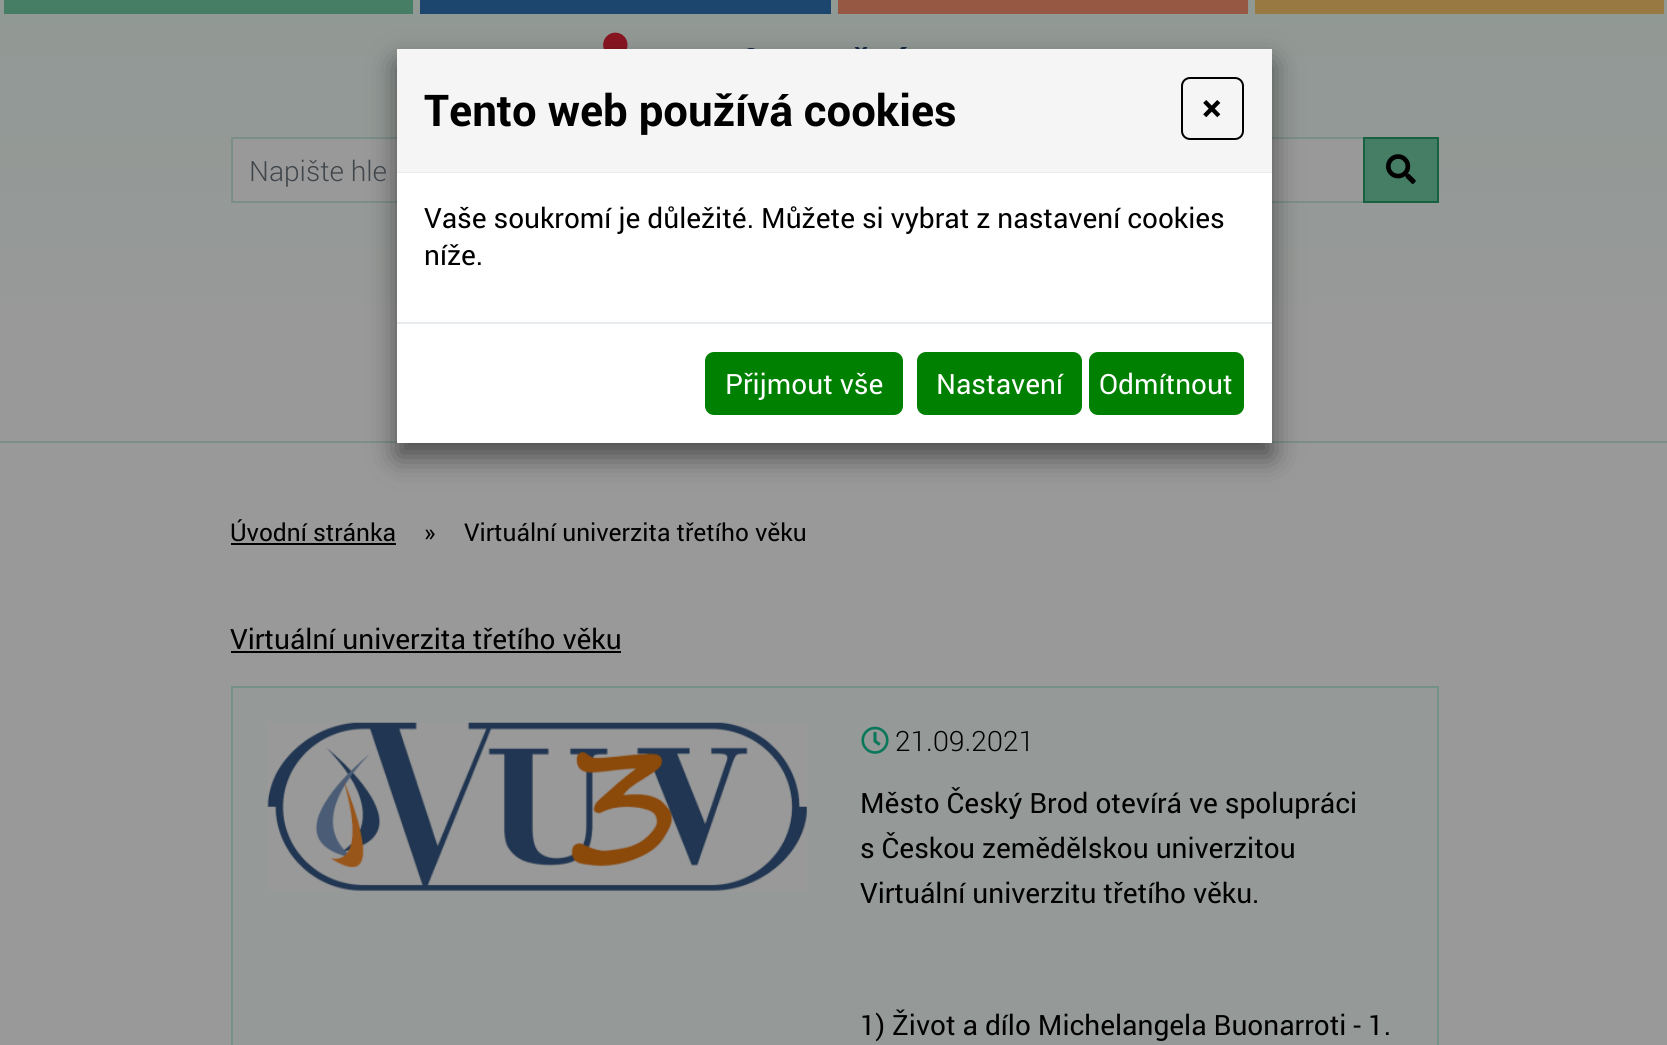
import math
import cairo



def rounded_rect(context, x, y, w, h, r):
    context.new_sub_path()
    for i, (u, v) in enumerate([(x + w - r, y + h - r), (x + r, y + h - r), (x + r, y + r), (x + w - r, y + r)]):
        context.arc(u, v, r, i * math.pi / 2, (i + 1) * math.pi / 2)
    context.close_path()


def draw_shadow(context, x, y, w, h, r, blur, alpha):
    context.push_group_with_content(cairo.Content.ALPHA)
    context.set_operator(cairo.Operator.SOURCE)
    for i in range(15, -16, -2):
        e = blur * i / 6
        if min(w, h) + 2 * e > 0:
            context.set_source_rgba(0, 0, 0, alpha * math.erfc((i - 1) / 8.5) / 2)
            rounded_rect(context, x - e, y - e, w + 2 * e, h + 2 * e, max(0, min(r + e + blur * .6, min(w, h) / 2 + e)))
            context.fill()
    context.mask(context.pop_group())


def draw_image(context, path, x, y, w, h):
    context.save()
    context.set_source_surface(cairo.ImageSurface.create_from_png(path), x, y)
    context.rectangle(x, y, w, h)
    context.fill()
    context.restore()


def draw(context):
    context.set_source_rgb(153 / 255, 153 / 255, 153 / 255)
    context.paint()
    gradient = cairo.LinearGradient(834, 0, 834, 441)
    gradient.add_color_stop_rgba(0, 145 / 255, 153 / 255, 149 / 255, 1)
    gradient.add_color_stop_rgba(1, 153 / 255, 153 / 255, 153 / 255, 1)
    context.set_source(gradient)
    context.rectangle(0, 0, 1667, 303)
    context.fill()
    context.set_source_rgb(124 / 255, 143 / 255, 134 / 255)
    context.rectangle(0, 441, 1667, 2)
    context.fill()
    context.set_source_rgb(69 / 255, 126 / 255, 101 / 255)
    context.rectangle(4, 0, 409, 14)
    context.fill()
    context.set_source_rgb(28 / 255, 70 / 255, 109 / 255)
    context.rectangle(420, 0, 411, 14)
    context.fill()
    context.set_source_rgb(150 / 255, 88 / 255, 66 / 255)
    context.rectangle(838, 0, 410, 14)
    context.fill()
    context.set_source_rgb(151 / 255, 121 / 255, 65 / 255)
    context.rectangle(1255, 0, 409, 14)
    context.fill()
    draw_image(context, "images/1.png", 603, 32, 304, 17)
    context.set_source_rgb(153 / 255, 153 / 255, 153 / 255)
    context.rectangle(233, 139, 1130, 62)
    context.fill()
    context.set_source_rgb(124 / 255, 143 / 255, 134 / 255)
    context.rectangle(231, 137, 1134, 2)
    context.fill()
    context.rectangle(231, 201, 1134, 2)
    context.fill()
    context.rectangle(231, 137, 2, 66)
    context.fill()
    context.set_source_rgb(69 / 255, 126 / 255, 101 / 255)
    context.rectangle(1364, 138, 74, 64)
    context.fill_preserve()
    context.set_source_rgb(23 / 255, 96 / 255, 64 / 255)
    context.stroke()
    draw_image(context, "images/2.png", 1386, 154, 30, 30)
    context.set_source_rgb(0, 0, 0)
    draw_shadow(context, 397, 63, 875, 394, 0, 14, 0.5)
    context.set_source_rgb(1, 1, 1)
    context.rectangle(397, 324, 875, 119)
    context.fill()
    context.set_source_rgb(245 / 255, 245 / 255, 245 / 255)
    context.rectangle(397, 49, 875, 123)
    context.fill()
    context.set_source_rgb(233 / 255, 236 / 255, 239 / 255)
    context.rectangle(397, 172, 875, 1)
    context.fill()
    rounded_rect(context, 1182, 78, 61, 61, 8)
    context.set_source_rgb(0, 0, 0)
    context.stroke()
    context.set_source_rgb(1, 1, 1)
    context.rectangle(397, 173, 875, 149)
    context.fill()
    context.set_source_rgb(233 / 255, 236 / 255, 239 / 255)
    context.rectangle(397, 322, 875, 2)
    context.fill()
    context.set_source_rgb(0, 128 / 255, 0)
    rounded_rect(context, 706, 353, 196, 61, 8)
    context.fill_preserve()
    context.stroke()
    rounded_rect(context, 918, 353, 163, 61, 8)
    context.fill_preserve()
    context.stroke()
    rounded_rect(context, 1090, 353, 153, 61, 8)
    context.fill_preserve()
    context.stroke()
    context.set_source_rgb(0, 0, 0)
    context.rectangle(231, 543, 165, 2)
    context.fill()
    context.rectangle(231, 651, 390, 2)
    context.fill()
    context.set_source_rgb(149 / 255, 153 / 255, 152 / 255)
    context.rectangle(232, 687, 1206, 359)
    context.fill_preserve()
    context.set_source_rgb(116 / 255, 146 / 255, 134 / 255)
    context.stroke()
    draw_image(context, "images/3.png", 267, 722, 540, 169)
    draw_image(context, "images/4.png", 861, 726, 28, 28)
    context.select_font_face("Roboto Light")
    context.set_font_size(28)
    context.set_source_rgb(65 / 255, 70 / 255, 75 / 255)
    context.move_to(249, 181)
    context.show_text("Napište hle")
    context.select_font_face("Roboto", cairo.FontSlant.NORMAL, cairo.FontWeight.BOLD)
    context.set_font_size(43.75)
    context.set_source_rgb(0, 0, 0)
    context.move_to(424, 126)
    context.show_text("Tento web používá cookies")
    context.set_font_size(37)
    context.move_to(1202, 121)
    context.show_text("×")
    context.select_font_face("Roboto")
    context.set_font_size(28)
    context.move_to(424, 228)
    context.show_text("Vaše soukromí je důležité. Můžete si vybrat z nastavení cookies")
    context.move_to(424, 265)
    context.show_text("níže.")
    context.set_source_rgb(1, 1, 1)
    context.move_to(725, 394)
    context.show_text("Přijmout vše")
    context.move_to(936, 394)
    context.show_text("Nastavení")
    context.move_to(1099, 394)
    context.show_text("Odmítnout")
    context.set_font_size(24.5)
    context.set_source_rgb(0, 0, 0)
    context.move_to(230, 541)
    context.show_text("Úvodní stránka")
    context.move_to(424, 541)
    context.show_text("»")
    context.move_to(464, 541)
    context.show_text("Virtuální univerzita třetího věku")
    context.set_font_size(28)
    context.move_to(230, 649)
    context.show_text("Virtuální univerzita třetího věku")
    context.select_font_face("Roboto Light")
    context.move_to(895, 751)
    context.show_text("21.09.2021")
    context.select_font_face("Roboto")
    context.move_to(860, 813)
    context.show_text("Město Český Brod otevírá ve spolupráci")
    context.move_to(860, 858)
    context.show_text("s Českou zemědělskou univerzitou")
    context.move_to(860, 903)
    context.show_text("Virtuální univerzitu třetího věku.")
    context.move_to(860, 1035)
    context.show_text("1) Život a dílo Michelangela Buonarroti - 1.")


surface = cairo.ImageSurface(cairo.Format.RGB24, 1667, 1045)
context = cairo.Context(surface)
options = cairo.FontOptions()
options.set_hint_metrics(cairo.HintMetrics.OFF)
options.set_hint_style(cairo.HintStyle.NONE)
context.set_font_options(options)
context.set_miter_limit(4)
draw(context)
surface.write_to_png("out.png")
